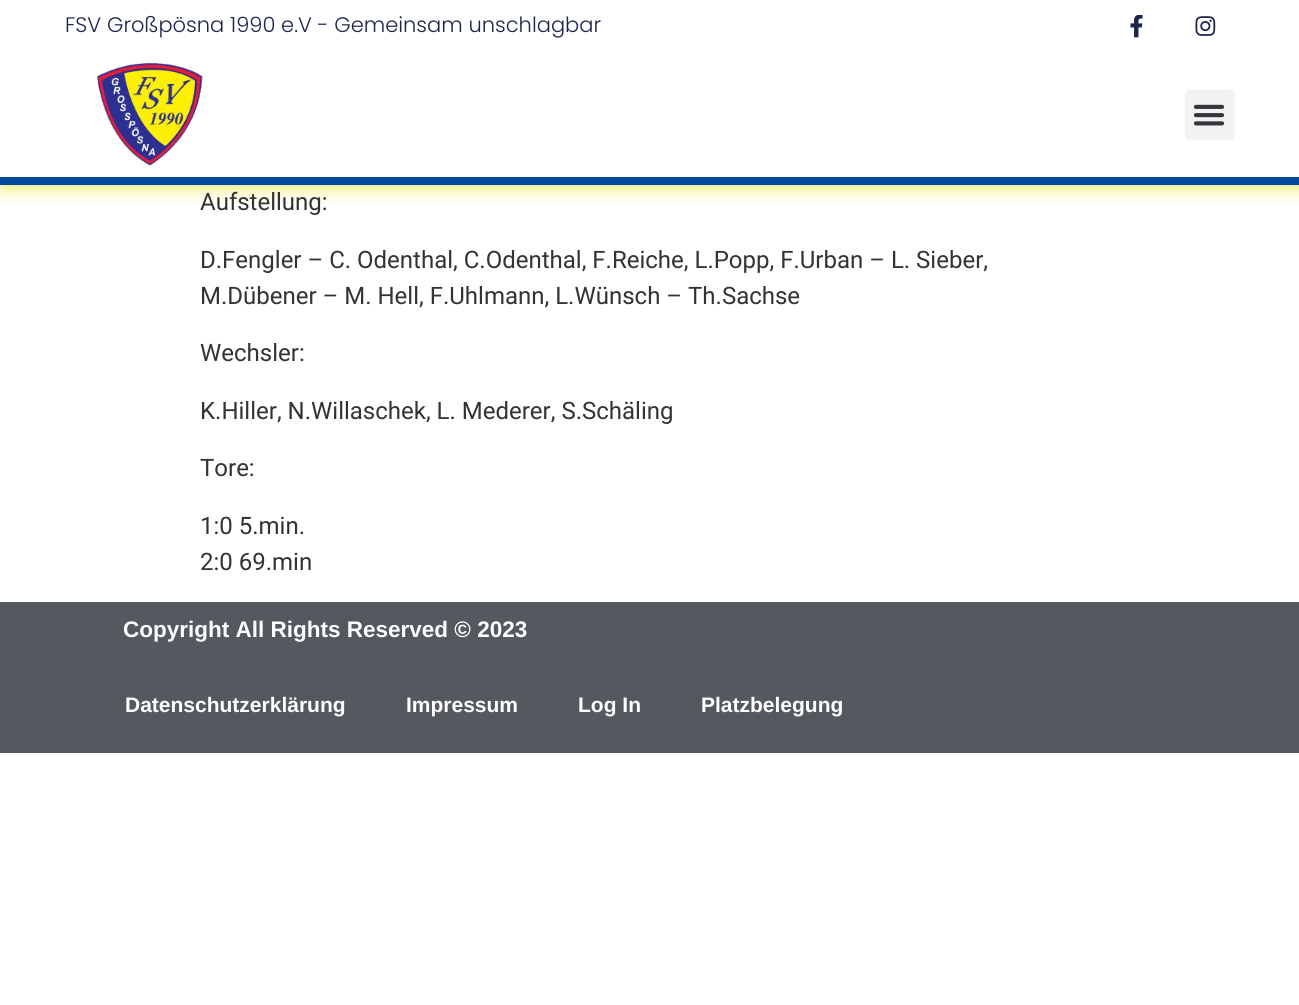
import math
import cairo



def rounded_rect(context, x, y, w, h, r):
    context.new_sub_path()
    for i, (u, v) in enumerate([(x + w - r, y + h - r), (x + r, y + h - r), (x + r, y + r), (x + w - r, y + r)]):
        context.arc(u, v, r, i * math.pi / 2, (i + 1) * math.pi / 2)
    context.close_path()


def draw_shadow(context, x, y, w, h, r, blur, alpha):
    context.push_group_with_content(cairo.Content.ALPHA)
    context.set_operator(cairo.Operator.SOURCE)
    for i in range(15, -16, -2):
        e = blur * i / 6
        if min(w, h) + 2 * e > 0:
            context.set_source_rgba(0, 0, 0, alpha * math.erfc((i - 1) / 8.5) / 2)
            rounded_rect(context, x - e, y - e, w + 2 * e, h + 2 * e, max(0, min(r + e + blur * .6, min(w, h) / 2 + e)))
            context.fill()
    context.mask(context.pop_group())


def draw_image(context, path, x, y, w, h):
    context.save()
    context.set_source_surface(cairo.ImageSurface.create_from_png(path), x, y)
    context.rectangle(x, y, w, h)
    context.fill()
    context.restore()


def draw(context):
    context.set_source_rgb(1, 1, 1)
    context.paint()
    context.save()
    context.rectangle(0, 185, 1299, 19)
    context.clip()
    context.set_source_rgb(231 / 255, 226 / 255, 7 / 255)
    draw_shadow(context, 2, 45, 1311, 146, 0, 7.5, 0.5)
    context.restore()
    context.set_source_rgb(1, 1, 1)
    context.rectangle(0, 30, 1299, 21)
    context.fill()
    draw_image(context, "images/1.png", 1130, 15, 13, 23)
    draw_image(context, "images/2.png", 1195, 16, 21, 20)
    context.set_source_rgb(0, 72 / 255, 153 / 255)
    context.rectangle(0, 177, 1299, 8)
    context.fill()
    draw_image(context, "images/3.png", 97, 63, 106, 103)
    context.set_source_rgb(242 / 255, 242 / 255, 242 / 255)
    rounded_rect(context, 1185, 90, 50, 50, 5)
    context.fill()
    draw_image(context, "images/4.png", 1193, 104, 32, 22)
    context.set_source_rgb(84 / 255, 89 / 255, 95 / 255)
    context.rectangle(0, 602, 1299, 151)
    context.fill()
    context.select_font_face("Poppins Light")
    context.set_font_size(21)
    context.set_source_rgb(28 / 255, 36 / 255, 75 / 255)
    context.move_to(65, 32)
    context.show_text("FSV Großpösna 1990 e.V - Gemeinsam unschlagbar")
    context.select_font_face("Roboto")
    context.set_font_size(24)
    context.set_source_rgb(51 / 255, 51 / 255, 51 / 255)
    context.move_to(200, 210)
    context.show_text("Aufstellung:")
    context.move_to(200, 268)
    context.show_text("D.Fengler – C. Odenthal, C.Odenthal, F.Reiche, L.Popp, F.Urban – L. Sieber,")
    context.move_to(200, 304)
    context.show_text("M.Dübener – M. Hell, F.Uhlmann, L.Wünsch – Th.Sachse")
    context.move_to(200, 361)
    context.show_text("Wechsler:")
    context.move_to(200, 419)
    context.show_text("K.Hiller, N.Willaschek, L. Mederer, S.Schäling")
    context.move_to(200, 476)
    context.show_text("Tore:")
    context.move_to(200, 534)
    context.show_text("1:0 5.min.")
    context.move_to(200, 570)
    context.show_text("2:0 69.min")
    context.select_font_face("Liberation Sans", cairo.FontSlant.NORMAL, cairo.FontWeight.BOLD)
    context.set_font_size(22.5)
    context.set_source_rgb(1, 1, 1)
    context.move_to(123, 637)
    context.show_text("Copyright All Rights Reserved © 2023")
    context.set_font_size(21)
    context.move_to(125, 712)
    context.show_text("Datenschutzerklärung")
    context.move_to(406, 712)
    context.show_text("Impressum")
    context.move_to(578, 712)
    context.show_text("Log In")
    context.move_to(701, 712)
    context.show_text("Platzbelegung")


surface = cairo.ImageSurface(cairo.Format.RGB24, 1299, 1005)
context = cairo.Context(surface)
options = cairo.FontOptions()
options.set_hint_metrics(cairo.HintMetrics.OFF)
options.set_hint_style(cairo.HintStyle.NONE)
context.set_font_options(options)
context.set_miter_limit(4)
draw(context)
surface.write_to_png("out.png")
